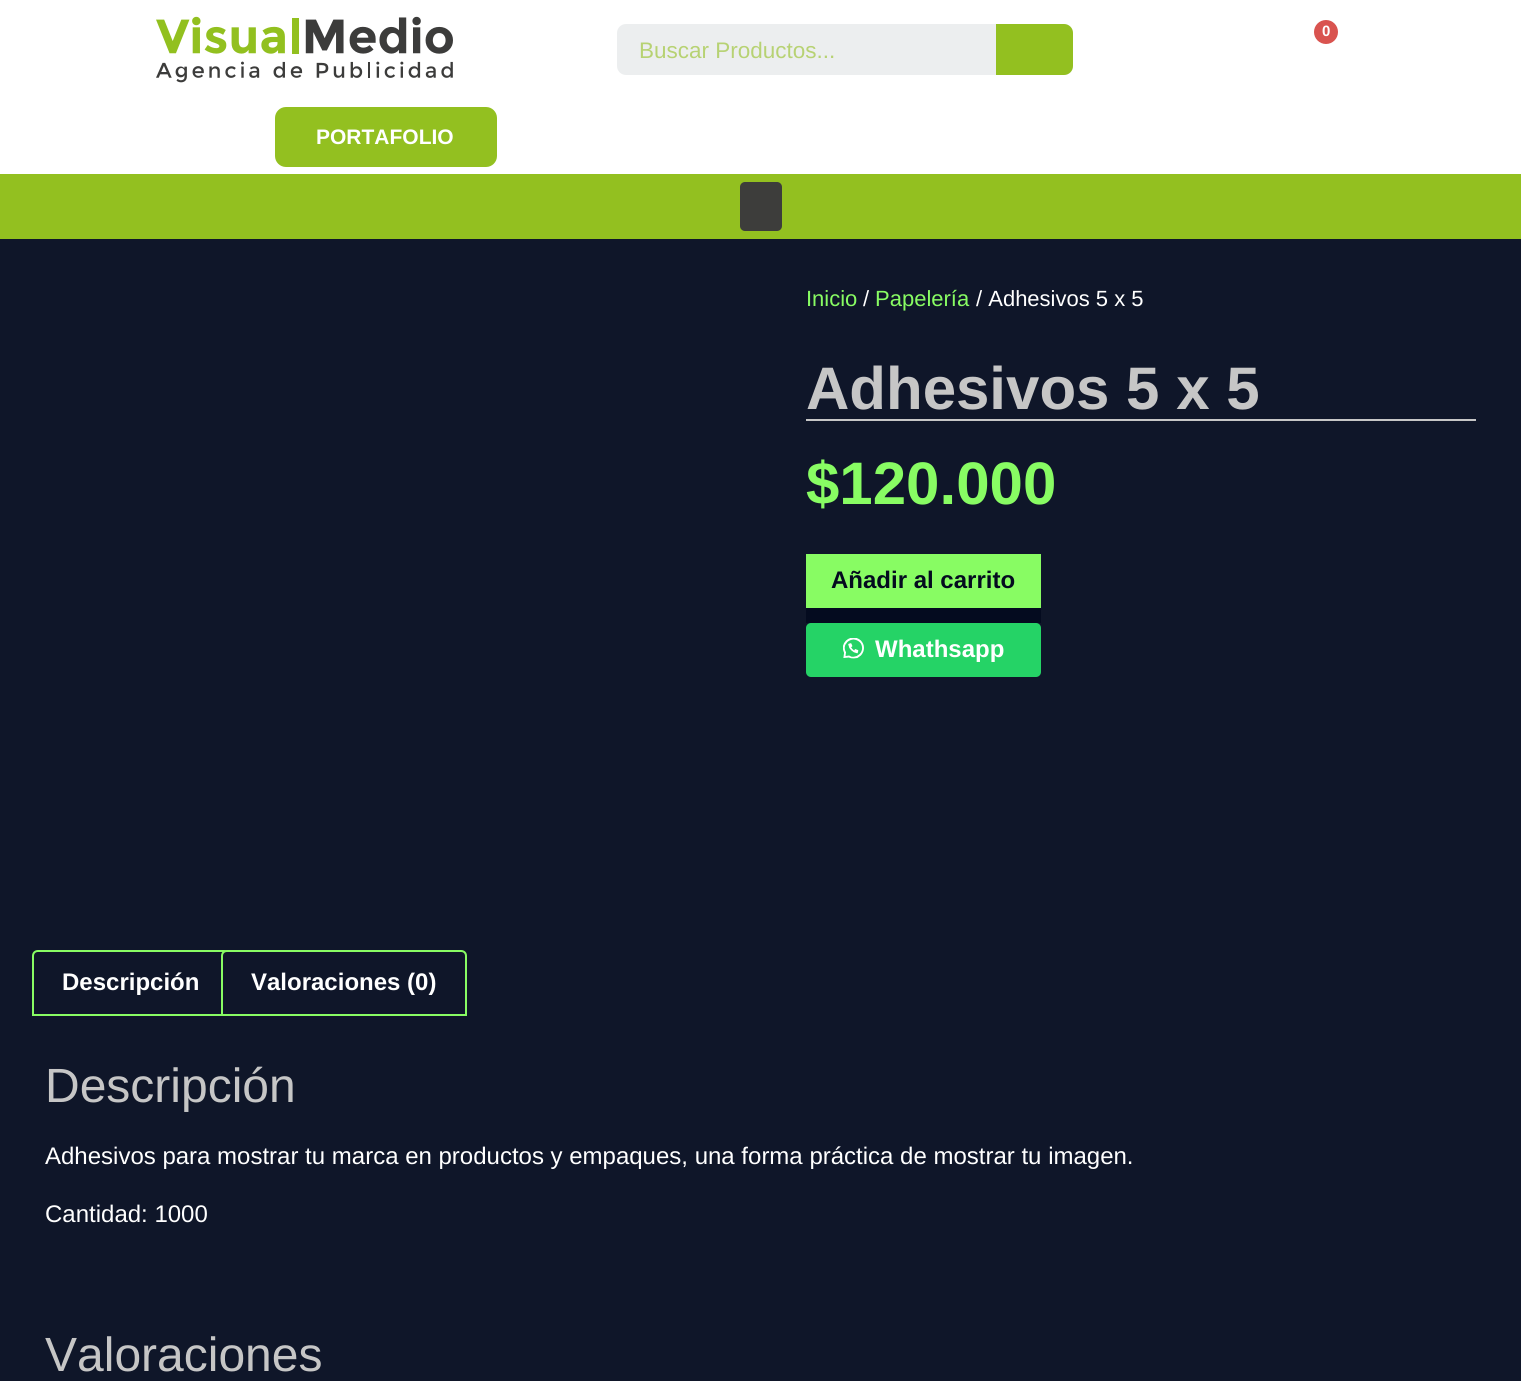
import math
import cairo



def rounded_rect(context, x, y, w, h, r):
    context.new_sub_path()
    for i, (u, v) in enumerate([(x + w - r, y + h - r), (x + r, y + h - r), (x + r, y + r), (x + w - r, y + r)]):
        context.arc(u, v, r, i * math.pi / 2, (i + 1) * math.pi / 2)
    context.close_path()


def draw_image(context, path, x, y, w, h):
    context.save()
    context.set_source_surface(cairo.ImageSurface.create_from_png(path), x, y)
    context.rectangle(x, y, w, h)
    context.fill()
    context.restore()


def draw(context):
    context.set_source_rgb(1, 1, 1)
    context.paint()
    draw_image(context, "images/1.png", 156, 16, 297, 67)
    context.set_source_rgb(217 / 255, 83 / 255, 79 / 255)
    context.arc(1326, 32, 12, 0, 2 * math.pi)
    context.fill()
    context.set_source_rgb(236 / 255, 238 / 255, 239 / 255)
    rounded_rect(context, 617, 24, 456, 51, 9)
    context.fill()
    context.set_source_rgb(147 / 255, 192 / 255, 32 / 255)
    context.new_path()
    context.move_to(996, 24)
    context.line_to(1064, 24)
    context.curve_to(1069, 24, 1073, 28, 1073, 33)
    context.line_to(1073, 66)
    context.curve_to(1073, 71, 1069, 75, 1064, 75)
    context.line_to(996, 75)
    context.close_path()
    context.fill()
    rounded_rect(context, 275, 107, 222, 60, 11)
    context.fill()
    context.rectangle(0, 174, 1521, 65)
    context.fill()
    context.set_source_rgb(61 / 255, 61 / 255, 59 / 255)
    rounded_rect(context, 740, 182, 42, 49, 5)
    context.fill()
    context.set_source_rgb(15 / 255, 22 / 255, 41 / 255)
    context.rectangle(0, 239, 1521, 1142)
    context.fill()
    context.set_source_rgb(198 / 255, 198 / 255, 198 / 255)
    context.rectangle(806, 419, 670, 2)
    context.fill()
    context.set_source_rgb(136 / 255, 252 / 255, 99 / 255)
    context.rectangle(806, 554, 235, 54)
    context.fill()
    context.set_source_rgb(4 / 255, 11 / 255, 31 / 255)
    context.rectangle(806, 608, 235, 15)
    context.fill()
    context.set_source_rgb(37 / 255, 211 / 255, 102 / 255)
    rounded_rect(context, 806, 623, 235, 54, 5)
    context.fill()
    draw_image(context, "images/2.png", 843, 638, 21, 21)
    context.new_path()
    context.move_to(38, 951)
    context.line_to(224, 951)
    context.curve_to(227, 951, 229, 953, 229, 956)
    context.line_to(229, 1015)
    context.line_to(33, 1015)
    context.line_to(33, 956)
    context.curve_to(33, 953, 35, 951, 38, 951)
    context.close_path()
    context.set_source_rgb(136 / 255, 252 / 255, 99 / 255)
    context.stroke()
    context.set_source_rgb(15 / 255, 22 / 255, 41 / 255)
    context.new_path()
    context.move_to(227, 951)
    context.line_to(461, 951)
    context.curve_to(464, 951, 466, 953, 466, 956)
    context.line_to(466, 1015)
    context.line_to(222, 1015)
    context.line_to(222, 956)
    context.curve_to(222, 953, 224, 951, 227, 951)
    context.close_path()
    context.fill_preserve()
    context.set_source_rgb(136 / 255, 252 / 255, 99 / 255)
    context.stroke()
    context.select_font_face("Liberation Sans", cairo.FontSlant.NORMAL, cairo.FontWeight.BOLD)
    context.set_font_size(15)
    context.set_source_rgb(1, 1, 1)
    context.move_to(1322, 36)
    context.show_text("0")
    context.select_font_face("Liberation Sans")
    context.set_font_size(22.5)
    context.set_source_rgb(183 / 255, 210 / 255, 115 / 255)
    context.move_to(639, 58)
    context.show_text("Buscar Productos...")
    context.select_font_face("Liberation Sans", cairo.FontSlant.NORMAL, cairo.FontWeight.BOLD)
    context.set_font_size(21)
    context.set_source_rgb(1, 1, 1)
    context.move_to(316, 144)
    context.show_text("PORTAFOLIO")
    context.select_font_face("Liberation Sans")
    context.set_font_size(22)
    context.set_source_rgb(136 / 255, 252 / 255, 99 / 255)
    context.move_to(806, 306)
    context.show_text("Inicio")
    context.set_source_rgb(1, 1, 1)
    context.move_to(863, 306)
    context.show_text("/")
    context.set_source_rgb(136 / 255, 252 / 255, 99 / 255)
    context.move_to(875, 306)
    context.show_text("Papelería")
    context.set_source_rgb(1, 1, 1)
    context.move_to(976, 306)
    context.show_text("/ Adhesivos 5 x 5")
    context.select_font_face("Liberation Sans", cairo.FontSlant.NORMAL, cairo.FontWeight.BOLD)
    context.set_font_size(60)
    context.set_source_rgb(198 / 255, 198 / 255, 198 / 255)
    context.move_to(806, 409)
    context.show_text("Adhesivos 5 x 5")
    context.set_source_rgb(136 / 255, 252 / 255, 99 / 255)
    context.move_to(806, 504)
    context.show_text("$120.000")
    context.set_font_size(24)
    context.set_source_rgb(4 / 255, 11 / 255, 31 / 255)
    context.move_to(831, 588)
    context.show_text("Añadir al carrito")
    context.set_source_rgb(1, 1, 1)
    context.move_to(875, 657)
    context.show_text("Whathsapp")
    context.move_to(62, 990)
    context.show_text("Descripción")
    context.move_to(251, 990)
    context.show_text("Valoraciones (0)")
    context.select_font_face("Liberation Sans")
    context.set_font_size(48)
    context.set_source_rgb(198 / 255, 198 / 255, 198 / 255)
    context.move_to(45, 1102)
    context.show_text("Descripción")
    context.set_font_size(24)
    context.set_source_rgb(1, 1, 1)
    context.move_to(45, 1164)
    context.show_text("Adhesivos para mostrar tu marca en productos y empaques, una forma práctica de mostrar tu imagen.")
    context.move_to(45, 1222)
    context.show_text("Cantidad: 1000")
    context.set_font_size(48)
    context.set_source_rgb(198 / 255, 198 / 255, 198 / 255)
    context.move_to(45, 1371)
    context.show_text("Valoraciones")


surface = cairo.ImageSurface(cairo.Format.RGB24, 1521, 1381)
context = cairo.Context(surface)
options = cairo.FontOptions()
options.set_hint_metrics(cairo.HintMetrics.OFF)
options.set_hint_style(cairo.HintStyle.NONE)
context.set_font_options(options)
context.set_miter_limit(4)
draw(context)
surface.write_to_png("out.png")
